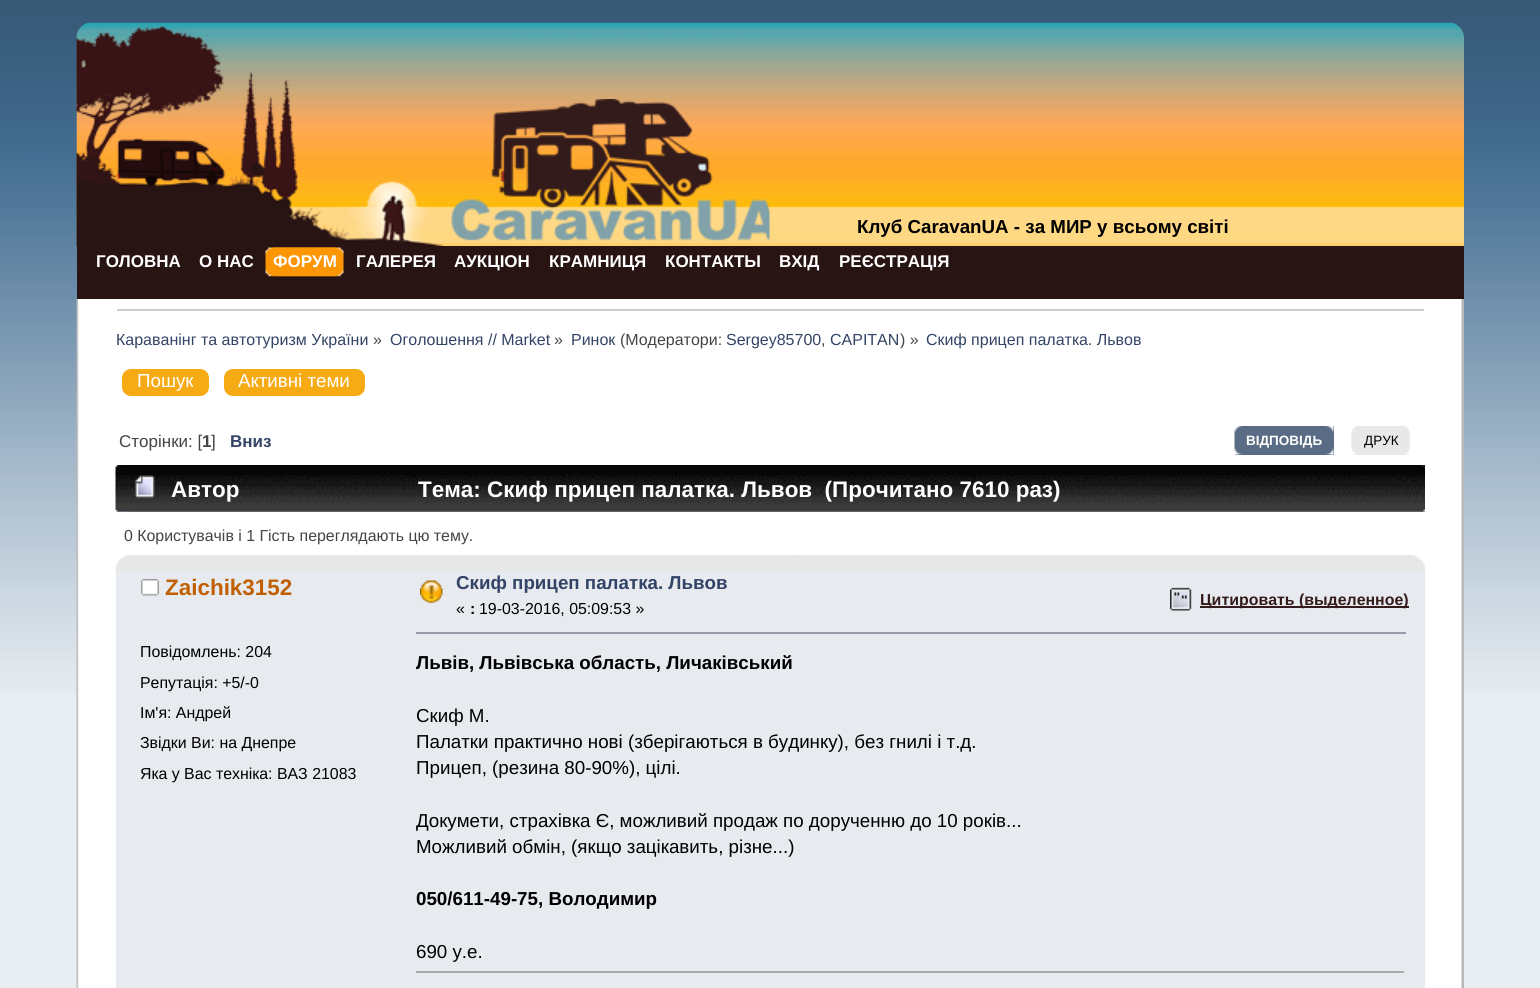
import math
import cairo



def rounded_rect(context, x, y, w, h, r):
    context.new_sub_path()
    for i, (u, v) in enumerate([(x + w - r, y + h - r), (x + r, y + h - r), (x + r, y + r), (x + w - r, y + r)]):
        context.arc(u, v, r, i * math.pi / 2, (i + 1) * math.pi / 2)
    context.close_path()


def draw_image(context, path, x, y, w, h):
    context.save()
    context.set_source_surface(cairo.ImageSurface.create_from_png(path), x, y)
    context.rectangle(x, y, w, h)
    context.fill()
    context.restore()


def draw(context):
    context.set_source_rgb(233 / 255, 238 / 255, 242 / 255)
    context.paint()
    draw_image(context, "images/1.png", 0, 0, 1540, 693)
    draw_image(context, "images/7.png", 76, 298, 31, 690)
    context.set_source_rgb(41 / 255, 20 / 255, 20 / 255)
    context.new_path()
    context.move_to(92, 23)
    context.line_to(1449, 23)
    context.curve_to(1457.5, 23, 1464, 29.5, 1464, 38)
    context.line_to(1464, 299)
    context.line_to(77, 299)
    context.line_to(77, 38)
    context.curve_to(77, 29.5, 83.5, 23, 92, 23)
    context.close_path()
    context.fill()
    draw_image(context, "images/2.png", 76, 22, 1388, 224)
    draw_image(context, "images/3.png", 76, 25, 368, 221)
    draw_image(context, "images/4.png", 451, 99, 319, 142)
    draw_image(context, "images/5.png", 273, 247, 71, 30)
    draw_image(context, "images/6.png", 265, 247, 71, 30)
    draw_image(context, "images/8.png", 106, 299, 1358, 689)
    context.set_source_rgb(204 / 255, 204 / 255, 204 / 255)
    context.rectangle(117, 309, 1307, 2)
    context.fill()
    context.set_source_rgb(246 / 255, 170 / 255, 20 / 255)
    rounded_rect(context, 122, 369, 87, 27, 9)
    context.fill()
    rounded_rect(context, 224, 369, 141, 27, 9)
    context.fill()
    context.set_source_rgb(90 / 255, 108 / 255, 133 / 255)
    context.rectangle(1235, 426, 99, 29)
    context.fill()
    draw_image(context, "images/9.png", 1234, 426, 8, 29)
    draw_image(context, "images/10.png", 1326, 426, 8, 29)
    context.set_source_rgb(232 / 255, 232 / 255, 232 / 255)
    context.rectangle(1352, 426, 58, 29)
    context.fill()
    draw_image(context, "images/11.png", 1351, 426, 6, 29)
    draw_image(context, "images/12.png", 1404, 426, 6, 29)
    context.set_source_rgb(153 / 255, 171 / 255, 191 / 255)
    context.rectangle(116, 511, 1309, 1)
    context.fill()
    draw_image(context, "images/13.png", 115, 465, 1310, 47)
    draw_image(context, "images/14.png", 129, 465, 1296, 47)
    draw_image(context, "images/15.png", 134, 475, 21, 24)
    context.set_source_rgb(231 / 255, 234 / 255, 239 / 255)
    context.rectangle(116, 571, 1309, 417)
    context.fill()
    draw_image(context, "images/16.png", 115, 555, 1310, 17)
    draw_image(context, "images/17.png", 1412, 555, 13, 13)
    draw_image(context, "images/18.png", 141, 579, 18, 17)
    draw_image(context, "images/19.png", 420, 580, 23, 23)
    draw_image(context, "images/20.png", 1170, 587, 22, 24)
    context.set_source_rgb(53 / 255, 27 / 255, 28 / 255)
    context.rectangle(1200, 606, 209, 2)
    context.fill()
    context.set_source_rgb(153 / 255, 153 / 255, 170 / 255)
    context.rectangle(416, 632, 990, 2)
    context.fill()
    context.set_source_rgb(170 / 255, 170 / 255, 170 / 255)
    context.rectangle(416, 971, 988, 2)
    context.fill()
    context.select_font_face("Liberation Sans", cairo.FontSlant.NORMAL, cairo.FontWeight.BOLD)
    context.set_font_size(18.75)
    context.set_source_rgb(0, 0, 0)
    context.move_to(857, 233)
    context.show_text("Клуб СaravanUA - за МИР у всьому світі")
    context.set_font_size(17)
    context.set_source_rgb(1, 1, 1)
    context.move_to(96, 267)
    context.show_text("ГОЛОВНА")
    context.move_to(199, 267)
    context.show_text("О НАС")
    context.move_to(273, 267)
    context.show_text("ФОРУМ")
    context.move_to(356, 267)
    context.show_text("ГАЛЕРЕЯ")
    context.move_to(454, 267)
    context.show_text("АУКЦІОН")
    context.move_to(549, 267)
    context.show_text("КРАМНИЦЯ")
    context.move_to(665, 267)
    context.show_text("КОНТАКТЫ")
    context.move_to(779, 267)
    context.show_text("ВХІД")
    context.move_to(839, 267)
    context.show_text("РЕЄСТРАЦІЯ")
    context.select_font_face("Liberation Sans")
    context.set_font_size(16)
    context.set_source_rgb(51 / 255, 68 / 255, 102 / 255)
    context.move_to(116, 345)
    context.show_text("Караванінг та автотуризм України")
    context.set_source_rgb(68 / 255, 68 / 255, 68 / 255)
    context.move_to(373, 345)
    context.show_text("»")
    context.set_source_rgb(51 / 255, 68 / 255, 102 / 255)
    context.move_to(390, 345)
    context.show_text("Оголошення // Market")
    context.set_source_rgb(68 / 255, 68 / 255, 68 / 255)
    context.move_to(554, 345)
    context.show_text("»")
    context.set_source_rgb(51 / 255, 68 / 255, 102 / 255)
    context.move_to(571, 345)
    context.show_text("Ринок")
    context.set_source_rgb(68 / 255, 68 / 255, 68 / 255)
    context.move_to(620, 345)
    context.show_text("(Модератори:")
    context.set_source_rgb(51 / 255, 68 / 255, 102 / 255)
    context.move_to(726, 345)
    context.show_text("Sergey85700")
    context.set_source_rgb(68 / 255, 68 / 255, 68 / 255)
    context.move_to(821, 345)
    context.show_text(",")
    context.set_source_rgb(51 / 255, 68 / 255, 102 / 255)
    context.move_to(830, 345)
    context.show_text("CAPITAN")
    context.set_source_rgb(68 / 255, 68 / 255, 68 / 255)
    context.move_to(900, 345)
    context.show_text(") »")
    context.set_source_rgb(51 / 255, 68 / 255, 102 / 255)
    context.move_to(926, 345)
    context.show_text("Скиф прицеп палатка. Львов")
    context.set_font_size(18.75)
    context.set_source_rgb(1, 1, 1)
    context.move_to(137, 387)
    context.show_text("Пошук")
    context.move_to(238, 387)
    context.show_text("Активні теми")
    context.set_font_size(17)
    context.set_source_rgb(68 / 255, 68 / 255, 68 / 255)
    context.move_to(119, 447)
    context.show_text("Сторінки: [")
    context.select_font_face("Liberation Sans", cairo.FontSlant.NORMAL, cairo.FontWeight.BOLD)
    context.move_to(202, 447)
    context.show_text("1")
    context.select_font_face("Liberation Sans")
    context.move_to(211, 447)
    context.show_text("]")
    context.select_font_face("Liberation Sans", cairo.FontSlant.NORMAL, cairo.FontWeight.BOLD)
    context.set_source_rgb(51 / 255, 68 / 255, 102 / 255)
    context.move_to(230, 447)
    context.show_text("Вниз")
    context.set_font_size(13.5)
    context.set_source_rgb(1, 1, 1)
    context.move_to(1246, 445)
    context.show_text("ВІДПОВІДЬ")
    context.select_font_face("Liberation Sans")
    context.set_source_rgb(0, 0, 0)
    context.move_to(1364, 445)
    context.show_text("ДРУК")
    context.select_font_face("Liberation Sans", cairo.FontSlant.NORMAL, cairo.FontWeight.BOLD)
    context.set_font_size(22.45)
    context.set_source_rgb(1, 1, 1)
    context.move_to(171, 497)
    context.show_text("Автор")
    context.move_to(418, 497)
    context.show_text("Тема: Скиф прицеп палатка. Львов  (Прочитано 7610 раз)")
    context.select_font_face("Liberation Sans")
    context.set_font_size(15.9)
    context.set_source_rgb(68 / 255, 68 / 255, 68 / 255)
    context.move_to(124, 541)
    context.show_text("0 Користувачів і 1 Гість переглядають цю тему.")
    context.select_font_face("Liberation Sans", cairo.FontSlant.NORMAL, cairo.FontWeight.BOLD)
    context.set_font_size(22.45)
    context.set_source_rgb(192 / 255, 96 / 255, 2 / 255)
    context.move_to(165, 595)
    context.show_text("Zaichik3152")
    context.select_font_face("Liberation Sans")
    context.set_font_size(15.9)
    context.set_source_rgb(0, 0, 0)
    context.move_to(140, 657)
    context.show_text("Повідомлень: 204")
    context.move_to(140, 688)
    context.show_text("Репутація: +5/-0")
    context.move_to(140, 718)
    context.show_text("Iм'я: Андрей")
    context.move_to(140, 748)
    context.show_text("Звідки Ви: на Днепре")
    context.move_to(140, 779)
    context.show_text("Яка у Вас техніка: ВАЗ 21083")
    context.select_font_face("Liberation Sans", cairo.FontSlant.NORMAL, cairo.FontWeight.BOLD)
    context.set_font_size(18.75)
    context.set_source_rgb(51 / 255, 68 / 255, 102 / 255)
    context.move_to(456, 589)
    context.show_text("Скиф прицеп палатка. Львов")
    context.select_font_face("Liberation Sans")
    context.set_font_size(15.9)
    context.set_source_rgb(0, 0, 0)
    context.move_to(456, 614)
    context.show_text("«")
    context.select_font_face("Liberation Sans", cairo.FontSlant.NORMAL, cairo.FontWeight.BOLD)
    context.move_to(470, 614)
    context.show_text(":")
    context.select_font_face("Liberation Sans")
    context.move_to(479, 614)
    context.show_text("19-03-2016, 05:09:53 »")
    context.select_font_face("Liberation Sans", cairo.FontSlant.NORMAL, cairo.FontWeight.BOLD)
    context.set_source_rgb(53 / 255, 27 / 255, 28 / 255)
    context.move_to(1200, 605)
    context.show_text("Цитировать (выделенное)")
    context.save()
    context.rectangle(416, 630, 1009, 341)
    context.clip()
    context.set_font_size(18.75)
    context.set_source_rgb(0, 0, 0)
    context.move_to(416, 669)
    context.show_text("Львів, Львівська область, Личаківський")
    context.restore()
    context.select_font_face("Liberation Sans")
    context.set_font_size(18.75)
    context.set_source_rgb(0, 0, 0)
    context.move_to(416, 722)
    context.show_text("Скиф М.")
    context.move_to(416, 748)
    context.show_text("Палатки практично нові (зберігаються в будинку), без гнилі і т.д.")
    context.move_to(416, 774)
    context.show_text("Прицеп, (резина 80-90%), цілі.")
    context.save()
    context.rectangle(416, 630, 1009, 341)
    context.clip()
    context.move_to(416, 827)
    context.show_text("Докумети, страхівка Є, можливий продаж по дорученню до 10 років...")
    context.restore()
    context.move_to(416, 853)
    context.show_text("Можливий обмін, (якщо зацікавить, різне...)")
    context.select_font_face("Liberation Sans", cairo.FontSlant.NORMAL, cairo.FontWeight.BOLD)
    context.move_to(416, 905)
    context.show_text("050/611-49-75, Володимир")
    context.select_font_face("Liberation Sans")
    context.move_to(416, 958)
    context.show_text("690 у.е.")


surface = cairo.ImageSurface(cairo.Format.RGB24, 1540, 988)
context = cairo.Context(surface)
options = cairo.FontOptions()
options.set_hint_metrics(cairo.HintMetrics.OFF)
options.set_hint_style(cairo.HintStyle.NONE)
context.set_font_options(options)
context.set_miter_limit(4)
draw(context)
surface.write_to_png("out.png")
